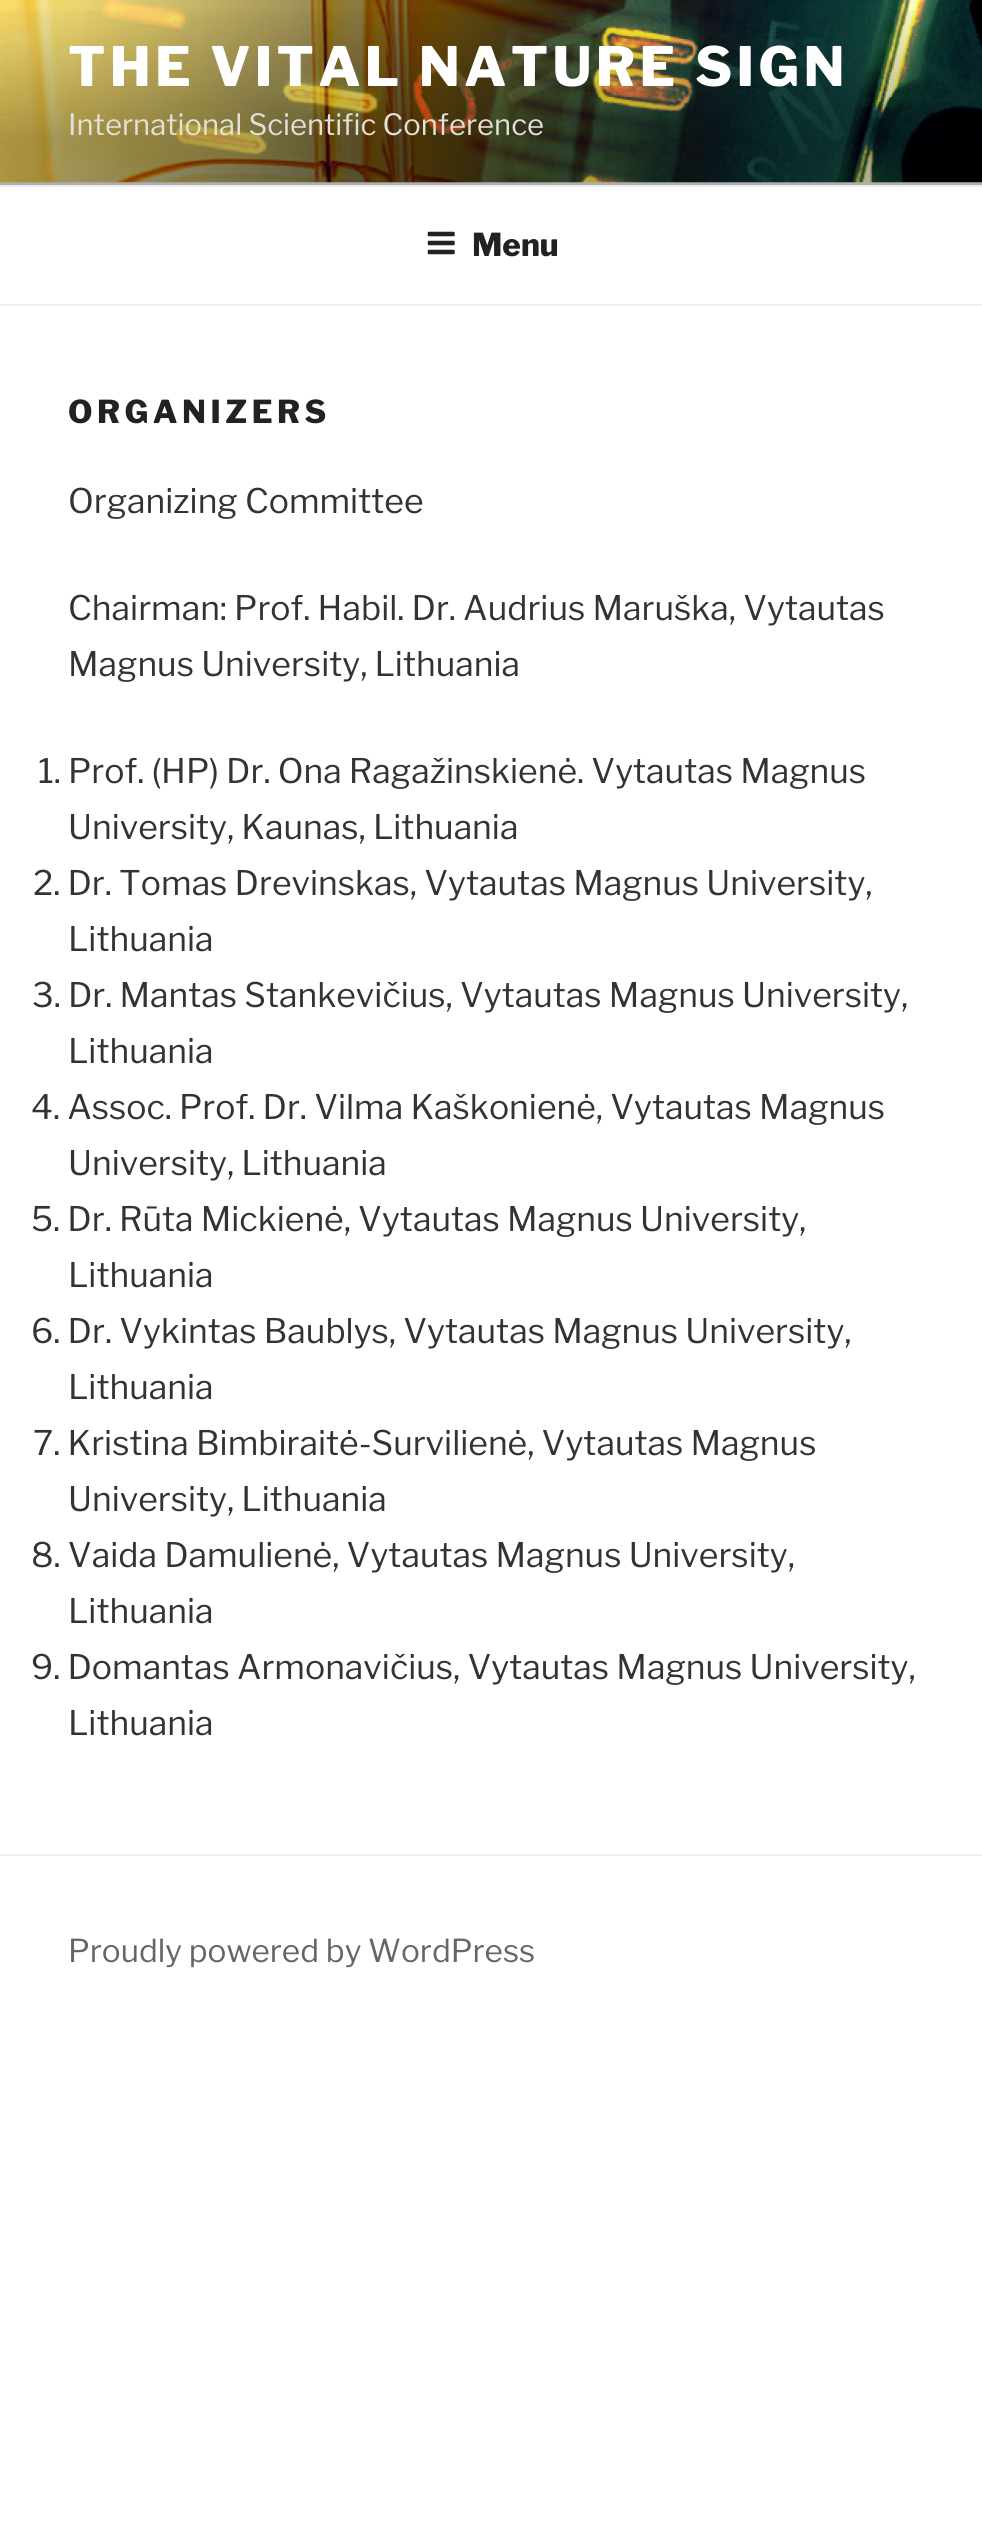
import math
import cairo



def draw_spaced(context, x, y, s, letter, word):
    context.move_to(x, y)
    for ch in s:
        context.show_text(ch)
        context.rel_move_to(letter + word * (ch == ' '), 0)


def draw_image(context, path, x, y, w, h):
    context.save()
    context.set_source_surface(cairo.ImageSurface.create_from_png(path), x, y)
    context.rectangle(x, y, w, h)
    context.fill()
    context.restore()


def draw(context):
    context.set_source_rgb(1, 1, 1)
    context.paint()
    context.set_source_rgb(250 / 255, 250 / 255, 250 / 255)
    context.rectangle(0, 182, 982, 3)
    context.fill()
    draw_image(context, "images/1.png", 0, 0, 982, 183)
    gradient = cairo.LinearGradient(492, 0, 492, 185)
    gradient.add_color_stop_rgba(0, 0, 0, 0, 0)
    gradient.add_color_stop_rgba(0.75, 0, 0, 0, 0.3)
    gradient.add_color_stop_rgba(1, 0, 0, 0, 0.3)
    context.set_source(gradient)
    context.rectangle(0, 10, 982, 175)
    context.fill()
    context.set_source_rgb(238 / 255, 238 / 255, 238 / 255)
    context.rectangle(0, 185, 982, 2)
    context.fill()
    context.rectangle(0, 304, 982, 2)
    context.fill()
    draw_image(context, "images/2.png", 427, 231, 28, 24)
    context.rectangle(0, 1854, 982, 2)
    context.fill()
    context.select_font_face("Libre Franklin Thin")
    context.set_font_size(54)
    context.set_source_rgb(1, 1, 1)
    draw_spaced(context, 68, 86, "THE VITAL NATURE SIGN", 4.3, 0)
    context.select_font_face("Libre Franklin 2 Thin")
    context.set_font_size(29.25)
    context.set_source_rgb(227 / 255, 224 / 255, 213 / 255)
    context.move_to(68, 135)
    context.show_text("International Scientific Conference")
    context.select_font_face("Libre Franklin Thin")
    context.set_font_size(31.5)
    context.set_source_rgb(34 / 255, 34 / 255, 34 / 255)
    context.move_to(472, 256)
    context.show_text("Menu")
    draw_spaced(context, 68, 423, "ORGANIZERS", 4.5, 0)
    context.select_font_face("Libre Franklin 2 Thin")
    context.set_font_size(33.75)
    context.set_source_rgb(51 / 255, 51 / 255, 51 / 255)
    context.move_to(68, 513)
    context.show_text("Organizing Committee")
    context.move_to(68, 620)
    context.show_text("Chairman: Prof. Habil. Dr. Audrius Maruška, Vytautas")
    context.move_to(68, 676)
    context.show_text("Magnus University, Lithuania")
    context.move_to(38, 783)
    context.show_text("1. Prof. (HP) Dr. Ona Ragažinskienė. Vytautas Magnus")
    context.move_to(68, 839)
    context.show_text("University, Kaunas, Lithuania")
    context.move_to(33, 895)
    context.show_text("2. Dr. Tomas Drevinskas, Vytautas Magnus University,")
    context.move_to(68, 951)
    context.show_text("Lithuania")
    context.move_to(32, 1007)
    context.show_text("3. Dr. Mantas Stankevičius, Vytautas Magnus University,")
    context.move_to(68, 1063)
    context.show_text("Lithuania")
    context.move_to(31, 1119)
    context.show_text("4. Assoc. Prof. Dr. Vilma Kaškonienė, Vytautas Magnus")
    context.move_to(68, 1175)
    context.show_text("University, Lithuania")
    context.move_to(31, 1231)
    context.show_text("5. Dr. Rūta Mickienė, Vytautas Magnus University,")
    context.move_to(68, 1287)
    context.show_text("Lithuania")
    context.move_to(31, 1343)
    context.show_text("6. Dr. Vykintas Baublys, Vytautas Magnus University,")
    context.move_to(68, 1399)
    context.show_text("Lithuania")
    context.move_to(33, 1455)
    context.show_text("7. Kristina Bimbiraitė-Survilienė, Vytautas Magnus")
    context.move_to(68, 1511)
    context.show_text("University, Lithuania")
    context.move_to(31, 1567)
    context.show_text("8. Vaida Damulienė, Vytautas Magnus University,")
    context.move_to(68, 1623)
    context.show_text("Lithuania")
    context.move_to(31, 1679)
    context.show_text("9. Domantas Armonavičius, Vytautas Magnus University,")
    context.move_to(68, 1735)
    context.show_text("Lithuania")
    context.set_font_size(31.5)
    context.set_source_rgb(102 / 255, 102 / 255, 102 / 255)
    context.move_to(68, 1962)
    context.show_text("Proudly powered by WordPress")


surface = cairo.ImageSurface(cairo.Format.RGB24, 982, 2546)
context = cairo.Context(surface)
options = cairo.FontOptions()
options.set_hint_metrics(cairo.HintMetrics.OFF)
options.set_hint_style(cairo.HintStyle.NONE)
context.set_font_options(options)
context.set_miter_limit(4)
draw(context)
surface.write_to_png("out.png")
